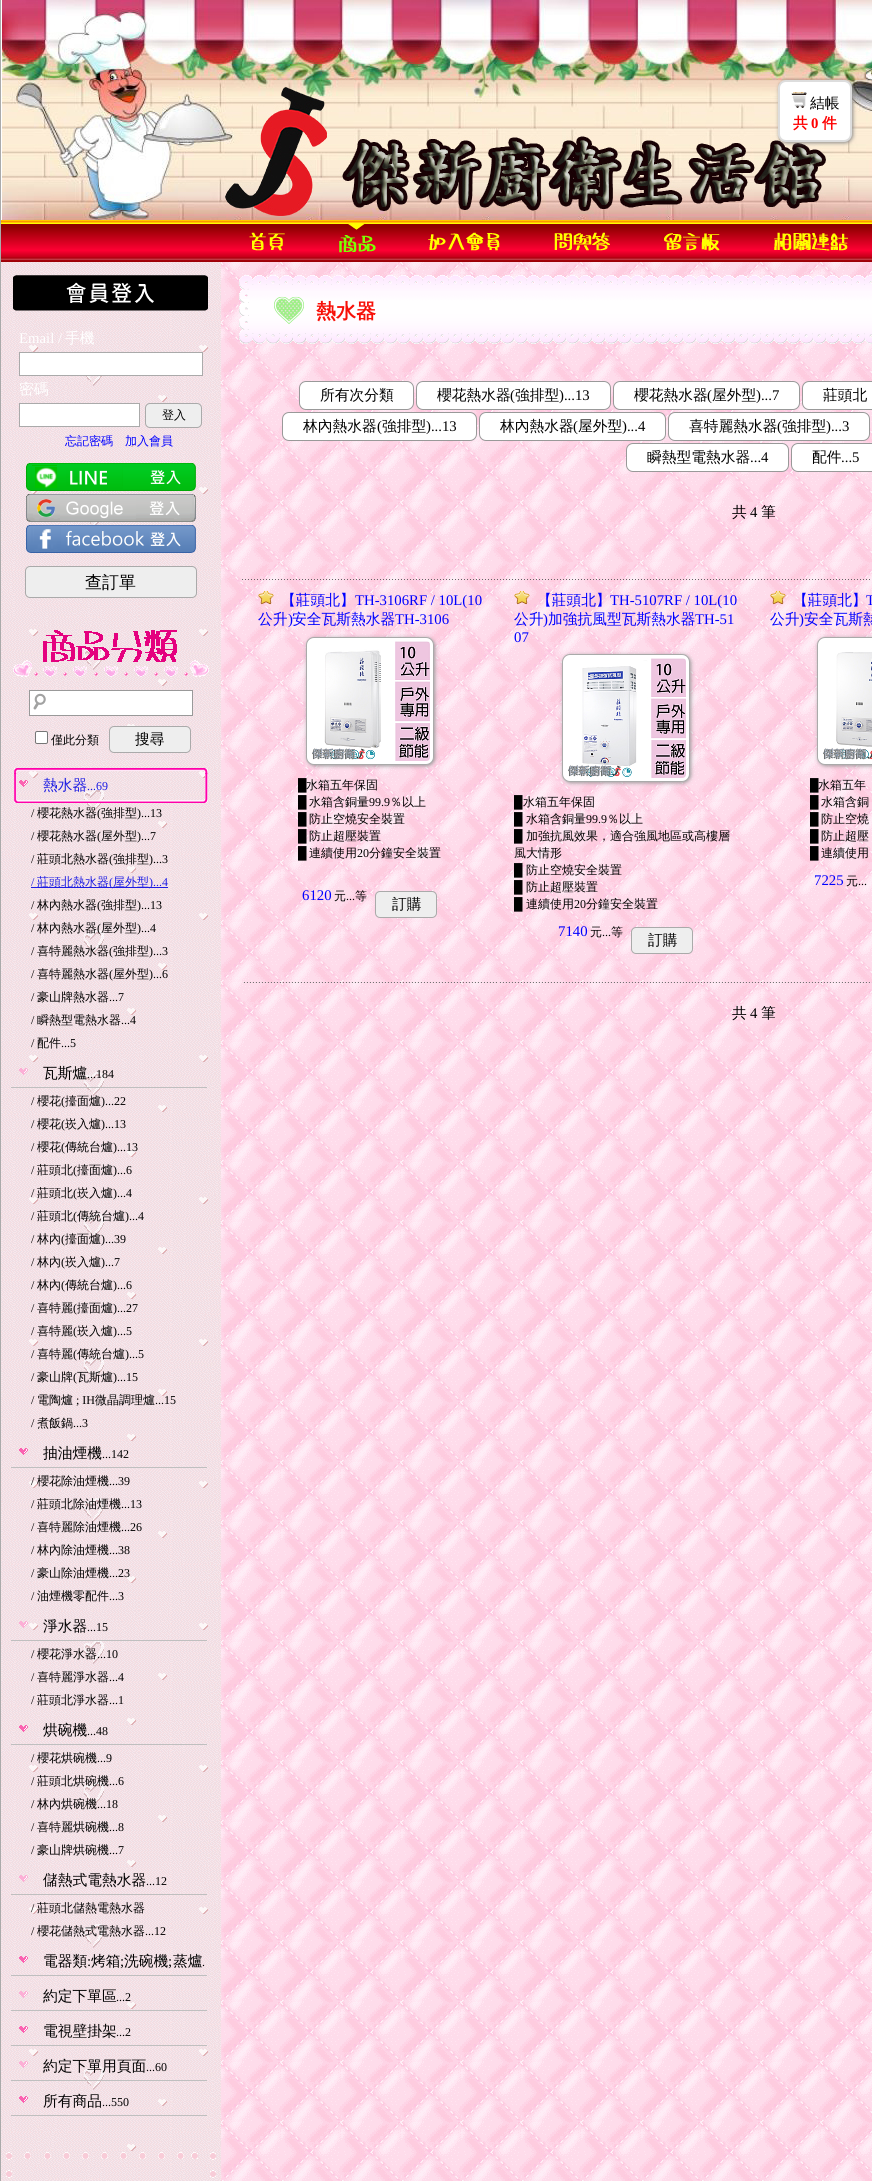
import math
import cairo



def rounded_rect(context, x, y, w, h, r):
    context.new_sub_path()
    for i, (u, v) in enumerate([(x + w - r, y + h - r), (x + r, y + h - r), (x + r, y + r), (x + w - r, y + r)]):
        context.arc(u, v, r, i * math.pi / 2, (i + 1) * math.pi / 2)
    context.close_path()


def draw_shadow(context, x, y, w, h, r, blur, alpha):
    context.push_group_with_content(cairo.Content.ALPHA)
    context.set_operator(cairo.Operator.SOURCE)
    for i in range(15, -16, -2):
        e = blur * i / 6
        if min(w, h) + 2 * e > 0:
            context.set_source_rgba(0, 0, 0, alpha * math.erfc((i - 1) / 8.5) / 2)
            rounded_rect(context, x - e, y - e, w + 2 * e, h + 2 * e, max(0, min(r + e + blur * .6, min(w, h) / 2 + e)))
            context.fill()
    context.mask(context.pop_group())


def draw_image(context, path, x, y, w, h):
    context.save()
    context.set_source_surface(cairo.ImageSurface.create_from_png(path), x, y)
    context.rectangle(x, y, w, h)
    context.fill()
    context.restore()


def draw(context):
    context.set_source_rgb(170 / 255, 170 / 255, 170 / 255)
    context.paint()
    draw_image(context, "images/1.png", 1, 0, 871, 220)
    context.set_source_rgb(136 / 255, 136 / 255, 136 / 255)
    draw_shadow(context, 779, 81, 74, 62, 8, 2, 1)
    context.set_source_rgb(1, 1, 1)
    rounded_rect(context, 779, 81, 72, 60, 7)
    context.fill_preserve()
    context.set_source_rgb(221 / 255, 221 / 255, 221 / 255)
    context.stroke()
    draw_image(context, "images/2.png", 791, 92, 16, 16)
    draw_image(context, "images/3.png", 1, 220, 221, 42)
    draw_image(context, "images/4.png", 222, 220, 91, 42)
    draw_image(context, "images/5.png", 313, 220, 89, 42)
    draw_image(context, "images/6.png", 402, 220, 126, 42)
    draw_image(context, "images/7.png", 528, 220, 109, 42)
    draw_image(context, "images/8.png", 637, 220, 110, 42)
    draw_image(context, "images/9.png", 747, 220, 125, 42)
    draw_image(context, "images/10.png", 1, 262, 220, 1919)
    draw_image(context, "images/11.png", 13, 275, 195, 36)
    context.set_source_rgb(1, 1, 1)
    context.rectangle(19.5, 352.5, 183, 23)
    context.fill_preserve()
    context.set_source_rgb(170 / 255, 170 / 255, 170 / 255)
    context.set_line_width(1)
    context.stroke()
    context.set_source_rgb(1, 1, 1)
    context.rectangle(19.5, 403.5, 120, 23)
    context.fill_preserve()
    context.set_source_rgb(170 / 255, 170 / 255, 170 / 255)
    context.stroke()
    context.set_source_rgb(238 / 255, 238 / 255, 238 / 255)
    rounded_rect(context, 145.5, 403.5, 56, 24, 4.5)
    context.fill_preserve()
    context.set_source_rgb(170 / 255, 170 / 255, 170 / 255)
    context.stroke()
    draw_image(context, "images/12.png", 26, 463, 170, 28)
    draw_image(context, "images/13.png", 26, 494, 170, 28)
    draw_image(context, "images/14.png", 26, 525, 170, 28)
    context.set_source_rgb(238 / 255, 238 / 255, 238 / 255)
    rounded_rect(context, 25.5, 566.5, 171, 31, 4.5)
    context.fill_preserve()
    context.set_source_rgb(170 / 255, 170 / 255, 170 / 255)
    context.stroke()
    draw_image(context, "images/15.png", 13, 630, 196, 47)
    context.set_source_rgb(1, 1, 1)
    context.rectangle(30, 691, 162, 24)
    context.fill()
    draw_image(context, "images/16.png", 33, 693, 13, 17)
    context.rectangle(29.5, 690.5, 163, 25)
    context.set_source_rgb(153 / 255, 153 / 255, 153 / 255)
    context.stroke()
    context.set_source_rgb(1, 1, 1)
    rounded_rect(context, 35.5, 731.5, 12, 12, 1.5)
    context.fill_preserve()
    context.set_source_rgb(118 / 255, 118 / 255, 118 / 255)
    context.stroke()
    context.set_source_rgb(238 / 255, 238 / 255, 238 / 255)
    rounded_rect(context, 109.5, 726.5, 81, 26, 4.5)
    context.fill_preserve()
    context.set_source_rgb(170 / 255, 170 / 255, 170 / 255)
    context.stroke()
    draw_image(context, "images/17.png", 14, 768, 194, 35)
    context.set_source_rgb(28 / 255, 28 / 255, 227 / 255)
    context.rectangle(31, 887, 137, 1)
    context.fill()
    draw_image(context, "images/18.png", 11, 1068, 196, 20)
    draw_image(context, "images/19.png", 11, 1448, 196, 20)
    draw_image(context, "images/20.png", 11, 1621, 196, 20)
    draw_image(context, "images/21.png", 11, 1725, 196, 20)
    draw_image(context, "images/22.png", 11, 1875, 196, 20)
    draw_image(context, "images/23.png", 11, 1956, 196, 20)
    draw_image(context, "images/24.png", 11, 1991, 196, 20)
    draw_image(context, "images/25.png", 11, 2026, 196, 20)
    draw_image(context, "images/26.png", 11, 2061, 196, 20)
    draw_image(context, "images/27.png", 11, 2096, 196, 20)
    draw_image(context, "images/28.png", 6, 2152, 25, 26)
    draw_image(context, "images/29.png", 44, 2152, 140, 7)
    draw_image(context, "images/30.png", 191, 2152, 25, 26)
    draw_image(context, "images/31.png", 221, 262, 651, 1919)
    draw_image(context, "images/32.png", 239, 275, 67, 69)
    draw_image(context, "images/33.png", 306, 275, 566, 69)
    context.set_source_rgb(1, 1, 1)
    rounded_rect(context, 299.5, 381.5, 114, 28, 6.5)
    context.fill_preserve()
    context.set_source_rgb(153 / 255, 153 / 255, 153 / 255)
    context.stroke()
    context.set_source_rgb(1, 1, 1)
    rounded_rect(context, 416.5, 381.5, 194, 28, 6.5)
    context.fill_preserve()
    context.set_source_rgb(153 / 255, 153 / 255, 153 / 255)
    context.stroke()
    context.set_source_rgb(1, 1, 1)
    rounded_rect(context, 613.5, 381.5, 186, 28, 6.5)
    context.fill_preserve()
    context.set_source_rgb(153 / 255, 153 / 255, 153 / 255)
    context.stroke()
    context.set_source_rgb(1, 1, 1)
    rounded_rect(context, 802.5, 381.5, 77, 28, 6.5)
    context.fill_preserve()
    context.set_source_rgb(153 / 255, 153 / 255, 153 / 255)
    context.stroke()
    context.set_source_rgb(1, 1, 1)
    rounded_rect(context, 282.5, 412.5, 194, 28, 6.5)
    context.fill_preserve()
    context.set_source_rgb(153 / 255, 153 / 255, 153 / 255)
    context.stroke()
    context.set_source_rgb(1, 1, 1)
    rounded_rect(context, 479.5, 412.5, 186, 28, 6.5)
    context.fill_preserve()
    context.set_source_rgb(153 / 255, 153 / 255, 153 / 255)
    context.stroke()
    context.set_source_rgb(1, 1, 1)
    rounded_rect(context, 668.5, 412.5, 201, 28, 6.5)
    context.fill_preserve()
    context.set_source_rgb(153 / 255, 153 / 255, 153 / 255)
    context.stroke()
    context.set_source_rgb(1, 1, 1)
    rounded_rect(context, 626.5, 443.5, 162, 28, 6.5)
    context.fill_preserve()
    context.set_source_rgb(153 / 255, 153 / 255, 153 / 255)
    context.stroke()
    context.set_source_rgb(1, 1, 1)
    rounded_rect(context, 791.5, 443.5, 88, 28, 6.5)
    context.fill_preserve()
    context.set_source_rgb(153 / 255, 153 / 255, 153 / 255)
    context.stroke()
    draw_image(context, "images/34.png", 242, 579, 628, 1)
    draw_image(context, "images/35.png", 243, 982, 254, 1)
    draw_image(context, "images/36.png", 258, 591, 16, 14)
    context.set_source_rgb(153 / 255, 153 / 255, 153 / 255)
    draw_shadow(context, 307, 638, 128, 128, 8, 2, 1)
    context.set_source_rgb(1, 1, 1)
    rounded_rect(context, 306.5, 637.5, 127, 127, 7.5)
    context.fill_preserve()
    context.set_source_rgb(170 / 255, 170 / 255, 170 / 255)
    context.stroke()
    draw_image(context, "images/37.png", 312, 641, 118, 120)
    context.set_source_rgb(238 / 255, 238 / 255, 238 / 255)
    rounded_rect(context, 375.5, 891.5, 61, 26, 4.5)
    context.fill_preserve()
    context.set_source_rgb(170 / 255, 170 / 255, 170 / 255)
    context.stroke()
    draw_image(context, "images/38.png", 499, 982, 254, 1)
    draw_image(context, "images/39.png", 514, 591, 16, 14)
    context.set_source_rgb(153 / 255, 153 / 255, 153 / 255)
    draw_shadow(context, 563, 655, 128, 128, 8, 2, 1)
    context.set_source_rgb(1, 1, 1)
    rounded_rect(context, 562.5, 654.5, 127, 127, 7.5)
    context.fill_preserve()
    context.set_source_rgb(170 / 255, 170 / 255, 170 / 255)
    context.stroke()
    draw_image(context, "images/40.png", 568, 658, 118, 120)
    context.set_source_rgb(238 / 255, 238 / 255, 238 / 255)
    rounded_rect(context, 631.5, 927.5, 61, 26, 4.5)
    context.fill_preserve()
    context.set_source_rgb(170 / 255, 170 / 255, 170 / 255)
    context.stroke()
    draw_image(context, "images/41.png", 754, 982, 118, 1)
    draw_image(context, "images/42.png", 770, 591, 16, 14)
    context.set_source_rgb(153 / 255, 153 / 255, 153 / 255)
    draw_shadow(context, 818, 638, 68, 128, 8, 2, 1)
    context.set_source_rgb(1, 1, 1)
    rounded_rect(context, 817.5, 637.5, 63, 127, 7.5)
    context.fill_preserve()
    context.set_source_rgb(170 / 255, 170 / 255, 170 / 255)
    context.stroke()
    draw_image(context, "images/43.png", 823, 652, 49, 108)
    context.select_font_face("WenQuanYi Zen Hei Medium")
    context.set_font_size(14.75)
    context.set_source_rgb(0, 0, 0)
    context.move_to(810, 108)
    context.show_text("結帳")
    context.select_font_face("WenQuanYi Zen Hei", cairo.FontSlant.NORMAL, cairo.FontWeight.BOLD)
    context.set_source_rgb(1, 0, 0)
    context.move_to(793, 128)
    context.show_text("共")
    context.select_font_face("Liberation Serif", cairo.FontSlant.NORMAL, cairo.FontWeight.BOLD)
    context.move_to(811, 128)
    context.show_text("0")
    context.select_font_face("WenQuanYi Zen Hei", cairo.FontSlant.NORMAL, cairo.FontWeight.BOLD)
    context.move_to(822, 128)
    context.show_text("件")
    context.select_font_face("Liberation Serif")
    context.set_source_rgb(1, 1, 1)
    context.move_to(19, 343)
    context.show_text("Email /")
    context.select_font_face("WenQuanYi Zen Hei Medium")
    context.move_to(65, 343)
    context.show_text("手機")
    context.move_to(19, 394)
    context.show_text("密碼")
    context.set_font_size(12)
    context.set_source_rgb(0, 0, 0)
    context.move_to(162, 419)
    context.show_text("登入")
    context.set_source_rgb(0, 0, 1)
    context.move_to(65, 445)
    context.show_text("忘記密碼")
    context.move_to(125, 445)
    context.show_text("加入會員")
    context.set_font_size(17)
    context.set_source_rgb(0, 0, 0)
    context.move_to(85, 588)
    context.show_text("查訂單")
    context.set_font_size(12)
    context.move_to(51, 744)
    context.show_text("僅此分類")
    context.set_font_size(14.75)
    context.move_to(135, 744)
    context.show_text("搜尋")
    context.set_source_rgb(28 / 255, 28 / 255, 227 / 255)
    context.move_to(43, 790)
    context.show_text("熱水器")
    context.select_font_face("Liberation Serif")
    context.set_font_size(12)
    context.move_to(87, 790)
    context.show_text("...69")
    context.set_source_rgb(0, 0, 0)
    context.move_to(31, 817)
    context.show_text("/")
    context.select_font_face("WenQuanYi Zen Hei Medium")
    context.move_to(37, 817)
    context.show_text("櫻花熱水器")
    context.select_font_face("Liberation Serif")
    context.move_to(97, 817)
    context.show_text("(")
    context.select_font_face("WenQuanYi Zen Hei Medium")
    context.move_to(101, 817)
    context.show_text("強排型")
    context.select_font_face("Liberation Serif")
    context.move_to(137, 817)
    context.show_text(")...13")
    context.move_to(31, 840)
    context.show_text("/")
    context.select_font_face("WenQuanYi Zen Hei Medium")
    context.move_to(37, 840)
    context.show_text("櫻花熱水器")
    context.select_font_face("Liberation Serif")
    context.move_to(97, 840)
    context.show_text("(")
    context.select_font_face("WenQuanYi Zen Hei Medium")
    context.move_to(101, 840)
    context.show_text("屋外型")
    context.select_font_face("Liberation Serif")
    context.move_to(137, 840)
    context.show_text(")...7")
    context.move_to(31, 863)
    context.show_text("/")
    context.select_font_face("WenQuanYi Zen Hei Medium")
    context.move_to(37, 863)
    context.show_text("莊頭北熱水器")
    context.select_font_face("Liberation Serif")
    context.move_to(109, 863)
    context.show_text("(")
    context.select_font_face("WenQuanYi Zen Hei Medium")
    context.move_to(113, 863)
    context.show_text("強排型")
    context.select_font_face("Liberation Serif")
    context.move_to(149, 863)
    context.show_text(")...3")
    context.set_source_rgb(28 / 255, 28 / 255, 227 / 255)
    context.move_to(31, 886)
    context.show_text("/")
    context.select_font_face("WenQuanYi Zen Hei Medium")
    context.move_to(37, 886)
    context.show_text("莊頭北熱水器")
    context.select_font_face("Liberation Serif")
    context.move_to(109, 886)
    context.show_text("(")
    context.select_font_face("WenQuanYi Zen Hei Medium")
    context.move_to(113, 886)
    context.show_text("屋外型")
    context.select_font_face("Liberation Serif")
    context.move_to(149, 886)
    context.show_text(")...4")
    context.set_source_rgb(0, 0, 0)
    context.move_to(31, 909)
    context.show_text("/")
    context.select_font_face("WenQuanYi Zen Hei Medium")
    context.move_to(37, 909)
    context.show_text("林內熱水器")
    context.select_font_face("Liberation Serif")
    context.move_to(97, 909)
    context.show_text("(")
    context.select_font_face("WenQuanYi Zen Hei Medium")
    context.move_to(101, 909)
    context.show_text("強排型")
    context.select_font_face("Liberation Serif")
    context.move_to(137, 909)
    context.show_text(")...13")
    context.move_to(31, 932)
    context.show_text("/")
    context.select_font_face("WenQuanYi Zen Hei Medium")
    context.move_to(37, 932)
    context.show_text("林內熱水器")
    context.select_font_face("Liberation Serif")
    context.move_to(97, 932)
    context.show_text("(")
    context.select_font_face("WenQuanYi Zen Hei Medium")
    context.move_to(101, 932)
    context.show_text("屋外型")
    context.select_font_face("Liberation Serif")
    context.move_to(137, 932)
    context.show_text(")...4")
    context.move_to(31, 955)
    context.show_text("/")
    context.select_font_face("WenQuanYi Zen Hei Medium")
    context.move_to(37, 955)
    context.show_text("喜特麗熱水器")
    context.select_font_face("Liberation Serif")
    context.move_to(109, 955)
    context.show_text("(")
    context.select_font_face("WenQuanYi Zen Hei Medium")
    context.move_to(113, 955)
    context.show_text("強排型")
    context.select_font_face("Liberation Serif")
    context.move_to(149, 955)
    context.show_text(")...3")
    context.move_to(31, 978)
    context.show_text("/")
    context.select_font_face("WenQuanYi Zen Hei Medium")
    context.move_to(37, 978)
    context.show_text("喜特麗熱水器")
    context.select_font_face("Liberation Serif")
    context.move_to(109, 978)
    context.show_text("(")
    context.select_font_face("WenQuanYi Zen Hei Medium")
    context.move_to(113, 978)
    context.show_text("屋外型")
    context.select_font_face("Liberation Serif")
    context.move_to(149, 978)
    context.show_text(")...6")
    context.move_to(31, 1001)
    context.show_text("/")
    context.select_font_face("WenQuanYi Zen Hei Medium")
    context.move_to(37, 1001)
    context.show_text("豪山牌熱水器")
    context.select_font_face("Liberation Serif")
    context.move_to(109, 1001)
    context.show_text("...7")
    context.move_to(31, 1024)
    context.show_text("/")
    context.select_font_face("WenQuanYi Zen Hei Medium")
    context.move_to(37, 1024)
    context.show_text("瞬熱型電熱水器")
    context.select_font_face("Liberation Serif")
    context.move_to(121, 1024)
    context.show_text("...4")
    context.move_to(31, 1047)
    context.show_text("/")
    context.select_font_face("WenQuanYi Zen Hei Medium")
    context.move_to(37, 1047)
    context.show_text("配件")
    context.select_font_face("Liberation Serif")
    context.move_to(61, 1047)
    context.show_text("...5")
    context.select_font_face("WenQuanYi Zen Hei Medium")
    context.set_font_size(14.75)
    context.move_to(43, 1078)
    context.show_text("瓦斯爐")
    context.select_font_face("Liberation Serif")
    context.set_font_size(12)
    context.move_to(87, 1078)
    context.show_text("...184")
    context.move_to(31, 1105)
    context.show_text("/")
    context.select_font_face("WenQuanYi Zen Hei Medium")
    context.move_to(37, 1105)
    context.show_text("櫻花")
    context.select_font_face("Liberation Serif")
    context.move_to(61, 1105)
    context.show_text("(")
    context.select_font_face("WenQuanYi Zen Hei Medium")
    context.move_to(65, 1105)
    context.show_text("擡面爐")
    context.select_font_face("Liberation Serif")
    context.move_to(101, 1105)
    context.show_text(")...22")
    context.move_to(31, 1128)
    context.show_text("/")
    context.select_font_face("WenQuanYi Zen Hei Medium")
    context.move_to(37, 1128)
    context.show_text("櫻花")
    context.select_font_face("Liberation Serif")
    context.move_to(61, 1128)
    context.show_text("(")
    context.select_font_face("WenQuanYi Zen Hei Medium")
    context.move_to(65, 1128)
    context.show_text("崁入爐")
    context.select_font_face("Liberation Serif")
    context.move_to(101, 1128)
    context.show_text(")...13")
    context.move_to(31, 1151)
    context.show_text("/")
    context.select_font_face("WenQuanYi Zen Hei Medium")
    context.move_to(37, 1151)
    context.show_text("櫻花")
    context.select_font_face("Liberation Serif")
    context.move_to(61, 1151)
    context.show_text("(")
    context.select_font_face("WenQuanYi Zen Hei Medium")
    context.move_to(65, 1151)
    context.show_text("傳統台爐")
    context.select_font_face("Liberation Serif")
    context.move_to(113, 1151)
    context.show_text(")...13")
    context.move_to(31, 1174)
    context.show_text("/")
    context.select_font_face("WenQuanYi Zen Hei Medium")
    context.move_to(37, 1174)
    context.show_text("莊頭北")
    context.select_font_face("Liberation Serif")
    context.move_to(73, 1174)
    context.show_text("(")
    context.select_font_face("WenQuanYi Zen Hei Medium")
    context.move_to(77, 1174)
    context.show_text("擡面爐")
    context.select_font_face("Liberation Serif")
    context.move_to(113, 1174)
    context.show_text(")...6")
    context.move_to(31, 1197)
    context.show_text("/")
    context.select_font_face("WenQuanYi Zen Hei Medium")
    context.move_to(37, 1197)
    context.show_text("莊頭北")
    context.select_font_face("Liberation Serif")
    context.move_to(73, 1197)
    context.show_text("(")
    context.select_font_face("WenQuanYi Zen Hei Medium")
    context.move_to(77, 1197)
    context.show_text("崁入爐")
    context.select_font_face("Liberation Serif")
    context.move_to(113, 1197)
    context.show_text(")...4")
    context.move_to(31, 1220)
    context.show_text("/")
    context.select_font_face("WenQuanYi Zen Hei Medium")
    context.move_to(37, 1220)
    context.show_text("莊頭北")
    context.select_font_face("Liberation Serif")
    context.move_to(73, 1220)
    context.show_text("(")
    context.select_font_face("WenQuanYi Zen Hei Medium")
    context.move_to(77, 1220)
    context.show_text("傳統台爐")
    context.select_font_face("Liberation Serif")
    context.move_to(125, 1220)
    context.show_text(")...4")
    context.move_to(31, 1243)
    context.show_text("/")
    context.select_font_face("WenQuanYi Zen Hei Medium")
    context.move_to(37, 1243)
    context.show_text("林內")
    context.select_font_face("Liberation Serif")
    context.move_to(61, 1243)
    context.show_text("(")
    context.select_font_face("WenQuanYi Zen Hei Medium")
    context.move_to(65, 1243)
    context.show_text("擡面爐")
    context.select_font_face("Liberation Serif")
    context.move_to(101, 1243)
    context.show_text(")...39")
    context.move_to(31, 1266)
    context.show_text("/")
    context.select_font_face("WenQuanYi Zen Hei Medium")
    context.move_to(37, 1266)
    context.show_text("林內")
    context.select_font_face("Liberation Serif")
    context.move_to(61, 1266)
    context.show_text("(")
    context.select_font_face("WenQuanYi Zen Hei Medium")
    context.move_to(65, 1266)
    context.show_text("崁入爐")
    context.select_font_face("Liberation Serif")
    context.move_to(101, 1266)
    context.show_text(")...7")
    context.move_to(31, 1289)
    context.show_text("/")
    context.select_font_face("WenQuanYi Zen Hei Medium")
    context.move_to(37, 1289)
    context.show_text("林內")
    context.select_font_face("Liberation Serif")
    context.move_to(61, 1289)
    context.show_text("(")
    context.select_font_face("WenQuanYi Zen Hei Medium")
    context.move_to(65, 1289)
    context.show_text("傳統台爐")
    context.select_font_face("Liberation Serif")
    context.move_to(113, 1289)
    context.show_text(")...6")
    context.move_to(31, 1312)
    context.show_text("/")
    context.select_font_face("WenQuanYi Zen Hei Medium")
    context.move_to(37, 1312)
    context.show_text("喜特麗")
    context.select_font_face("Liberation Serif")
    context.move_to(73, 1312)
    context.show_text("(")
    context.select_font_face("WenQuanYi Zen Hei Medium")
    context.move_to(77, 1312)
    context.show_text("擡面爐")
    context.select_font_face("Liberation Serif")
    context.move_to(113, 1312)
    context.show_text(")...27")
    context.move_to(31, 1335)
    context.show_text("/")
    context.select_font_face("WenQuanYi Zen Hei Medium")
    context.move_to(37, 1335)
    context.show_text("喜特麗")
    context.select_font_face("Liberation Serif")
    context.move_to(73, 1335)
    context.show_text("(")
    context.select_font_face("WenQuanYi Zen Hei Medium")
    context.move_to(77, 1335)
    context.show_text("崁入爐")
    context.select_font_face("Liberation Serif")
    context.move_to(113, 1335)
    context.show_text(")...5")
    context.move_to(31, 1358)
    context.show_text("/")
    context.select_font_face("WenQuanYi Zen Hei Medium")
    context.move_to(37, 1358)
    context.show_text("喜特麗")
    context.select_font_face("Liberation Serif")
    context.move_to(73, 1358)
    context.show_text("(")
    context.select_font_face("WenQuanYi Zen Hei Medium")
    context.move_to(77, 1358)
    context.show_text("傳統台爐")
    context.select_font_face("Liberation Serif")
    context.move_to(125, 1358)
    context.show_text(")...5")
    context.move_to(31, 1381)
    context.show_text("/")
    context.select_font_face("WenQuanYi Zen Hei Medium")
    context.move_to(37, 1381)
    context.show_text("豪山牌")
    context.select_font_face("Liberation Serif")
    context.move_to(73, 1381)
    context.show_text("(")
    context.select_font_face("WenQuanYi Zen Hei Medium")
    context.move_to(77, 1381)
    context.show_text("瓦斯爐")
    context.select_font_face("Liberation Serif")
    context.move_to(113, 1381)
    context.show_text(")...15")
    context.move_to(31, 1404)
    context.show_text("/")
    context.select_font_face("WenQuanYi Zen Hei Medium")
    context.move_to(37, 1404)
    context.show_text("電陶爐")
    context.select_font_face("Liberation Serif")
    context.move_to(76, 1404)
    context.show_text("; IH")
    context.select_font_face("WenQuanYi Zen Hei Medium")
    context.move_to(95, 1404)
    context.show_text("微晶調理爐")
    context.select_font_face("Liberation Serif")
    context.move_to(155, 1404)
    context.show_text("...15")
    context.move_to(31, 1427)
    context.show_text("/")
    context.select_font_face("WenQuanYi Zen Hei Medium")
    context.move_to(37, 1427)
    context.show_text("煮飯鍋")
    context.select_font_face("Liberation Serif")
    context.move_to(73, 1427)
    context.show_text("...3")
    context.select_font_face("WenQuanYi Zen Hei Medium")
    context.set_font_size(14.75)
    context.move_to(43, 1458)
    context.show_text("抽油煙機")
    context.select_font_face("Liberation Serif")
    context.set_font_size(12)
    context.move_to(102, 1458)
    context.show_text("...142")
    context.move_to(31, 1485)
    context.show_text("/")
    context.select_font_face("WenQuanYi Zen Hei Medium")
    context.move_to(37, 1485)
    context.show_text("櫻花除油煙機")
    context.select_font_face("Liberation Serif")
    context.move_to(109, 1485)
    context.show_text("...39")
    context.move_to(31, 1508)
    context.show_text("/")
    context.select_font_face("WenQuanYi Zen Hei Medium")
    context.move_to(37, 1508)
    context.show_text("莊頭北除油煙機")
    context.select_font_face("Liberation Serif")
    context.move_to(121, 1508)
    context.show_text("...13")
    context.move_to(31, 1531)
    context.show_text("/")
    context.select_font_face("WenQuanYi Zen Hei Medium")
    context.move_to(37, 1531)
    context.show_text("喜特麗除油煙機")
    context.select_font_face("Liberation Serif")
    context.move_to(121, 1531)
    context.show_text("...26")
    context.move_to(31, 1554)
    context.show_text("/")
    context.select_font_face("WenQuanYi Zen Hei Medium")
    context.move_to(37, 1554)
    context.show_text("林內除油煙機")
    context.select_font_face("Liberation Serif")
    context.move_to(109, 1554)
    context.show_text("...38")
    context.move_to(31, 1577)
    context.show_text("/")
    context.select_font_face("WenQuanYi Zen Hei Medium")
    context.move_to(37, 1577)
    context.show_text("豪山除油煙機")
    context.select_font_face("Liberation Serif")
    context.move_to(109, 1577)
    context.show_text("...23")
    context.move_to(31, 1600)
    context.show_text("/")
    context.select_font_face("WenQuanYi Zen Hei Medium")
    context.move_to(37, 1600)
    context.show_text("油煙機零配件")
    context.select_font_face("Liberation Serif")
    context.move_to(109, 1600)
    context.show_text("...3")
    context.select_font_face("WenQuanYi Zen Hei Medium")
    context.set_font_size(14.75)
    context.move_to(43, 1631)
    context.show_text("淨水器")
    context.select_font_face("Liberation Serif")
    context.set_font_size(12)
    context.move_to(87, 1631)
    context.show_text("...15")
    context.move_to(31, 1658)
    context.show_text("/")
    context.select_font_face("WenQuanYi Zen Hei Medium")
    context.move_to(37, 1658)
    context.show_text("櫻花淨水器")
    context.select_font_face("Liberation Serif")
    context.move_to(97, 1658)
    context.show_text("...10")
    context.move_to(31, 1681)
    context.show_text("/")
    context.select_font_face("WenQuanYi Zen Hei Medium")
    context.move_to(37, 1681)
    context.show_text("喜特麗淨水器")
    context.select_font_face("Liberation Serif")
    context.move_to(109, 1681)
    context.show_text("...4")
    context.move_to(31, 1704)
    context.show_text("/")
    context.select_font_face("WenQuanYi Zen Hei Medium")
    context.move_to(37, 1704)
    context.show_text("莊頭北淨水器")
    context.select_font_face("Liberation Serif")
    context.move_to(109, 1704)
    context.show_text("...1")
    context.select_font_face("WenQuanYi Zen Hei Medium")
    context.set_font_size(14.75)
    context.move_to(43, 1735)
    context.show_text("烘碗機")
    context.select_font_face("Liberation Serif")
    context.set_font_size(12)
    context.move_to(87, 1735)
    context.show_text("...48")
    context.move_to(31, 1762)
    context.show_text("/")
    context.select_font_face("WenQuanYi Zen Hei Medium")
    context.move_to(37, 1762)
    context.show_text("櫻花烘碗機")
    context.select_font_face("Liberation Serif")
    context.move_to(97, 1762)
    context.show_text("...9")
    context.move_to(31, 1785)
    context.show_text("/")
    context.select_font_face("WenQuanYi Zen Hei Medium")
    context.move_to(37, 1785)
    context.show_text("莊頭北烘碗機")
    context.select_font_face("Liberation Serif")
    context.move_to(109, 1785)
    context.show_text("...6")
    context.move_to(31, 1808)
    context.show_text("/")
    context.select_font_face("WenQuanYi Zen Hei Medium")
    context.move_to(37, 1808)
    context.show_text("林內烘碗機")
    context.select_font_face("Liberation Serif")
    context.move_to(97, 1808)
    context.show_text("...18")
    context.move_to(31, 1831)
    context.show_text("/")
    context.select_font_face("WenQuanYi Zen Hei Medium")
    context.move_to(37, 1831)
    context.show_text("喜特麗烘碗機")
    context.select_font_face("Liberation Serif")
    context.move_to(109, 1831)
    context.show_text("...8")
    context.move_to(31, 1854)
    context.show_text("/")
    context.select_font_face("WenQuanYi Zen Hei Medium")
    context.move_to(37, 1854)
    context.show_text("豪山牌烘碗機")
    context.select_font_face("Liberation Serif")
    context.move_to(109, 1854)
    context.show_text("...7")
    context.select_font_face("WenQuanYi Zen Hei Medium")
    context.set_font_size(14.75)
    context.move_to(43, 1885)
    context.show_text("儲熱式電熱水器")
    context.select_font_face("Liberation Serif")
    context.set_font_size(12)
    context.move_to(146, 1885)
    context.show_text("...12")
    context.move_to(31, 1912)
    context.show_text("/")
    context.select_font_face("WenQuanYi Zen Hei Medium")
    context.move_to(37, 1912)
    context.show_text("莊頭北儲熱電熱水器")
    context.select_font_face("Liberation Serif")
    context.move_to(31, 1935)
    context.show_text("/")
    context.select_font_face("WenQuanYi Zen Hei Medium")
    context.move_to(37, 1935)
    context.show_text("櫻花儲熱式電熱水器")
    context.select_font_face("Liberation Serif")
    context.move_to(145, 1935)
    context.show_text("...12")
    context.select_font_face("WenQuanYi Zen Hei Medium")
    context.set_font_size(14.75)
    context.move_to(43, 1966)
    context.show_text("電器類")
    context.select_font_face("Liberation Serif")
    context.move_to(87, 1966)
    context.show_text(":")
    context.select_font_face("WenQuanYi Zen Hei Medium")
    context.move_to(91, 1966)
    context.show_text("烤箱")
    context.select_font_face("Liberation Serif")
    context.move_to(120, 1966)
    context.show_text(";")
    context.select_font_face("WenQuanYi Zen Hei Medium")
    context.move_to(124, 1966)
    context.show_text("洗碗機")
    context.select_font_face("Liberation Serif")
    context.move_to(168, 1966)
    context.show_text(";")
    context.select_font_face("WenQuanYi Zen Hei Medium")
    context.move_to(173, 1966)
    context.show_text("蒸爐")
    context.select_font_face("Liberation Serif")
    context.set_font_size(12)
    context.move_to(202, 1966)
    context.show_text(".")
    context.select_font_face("WenQuanYi Zen Hei Medium")
    context.set_font_size(14.75)
    context.move_to(43, 2001)
    context.show_text("約定下單區")
    context.select_font_face("Liberation Serif")
    context.set_font_size(12)
    context.move_to(116, 2001)
    context.show_text("...2")
    context.select_font_face("WenQuanYi Zen Hei Medium")
    context.set_font_size(14.75)
    context.move_to(43, 2036)
    context.show_text("電視壁掛架")
    context.select_font_face("Liberation Serif")
    context.set_font_size(12)
    context.move_to(116, 2036)
    context.show_text("...2")
    context.select_font_face("WenQuanYi Zen Hei Medium")
    context.set_font_size(14.75)
    context.move_to(43, 2071)
    context.show_text("約定下單用頁面")
    context.select_font_face("Liberation Serif")
    context.set_font_size(12)
    context.move_to(146, 2071)
    context.show_text("...60")
    context.select_font_face("WenQuanYi Zen Hei Medium")
    context.set_font_size(14.75)
    context.move_to(43, 2106)
    context.show_text("所有商品")
    context.select_font_face("Liberation Serif")
    context.set_font_size(12)
    context.move_to(102, 2106)
    context.show_text("...550")
    context.select_font_face("WenQuanYi Zen Hei", cairo.FontSlant.NORMAL, cairo.FontWeight.BOLD)
    context.set_font_size(20)
    context.set_source_rgb(247 / 255, 16 / 255, 8 / 255)
    context.move_to(316, 318)
    context.show_text("熱水器")
    context.select_font_face("WenQuanYi Zen Hei Medium")
    context.set_font_size(14.75)
    context.set_source_rgb(0, 0, 0)
    context.move_to(320, 400)
    context.show_text("所有次分類")
    context.move_to(437, 400)
    context.show_text("櫻花熱水器")
    context.select_font_face("Liberation Serif")
    context.move_to(510, 400)
    context.show_text("(")
    context.select_font_face("WenQuanYi Zen Hei Medium")
    context.move_to(515, 400)
    context.show_text("強排型")
    context.select_font_face("Liberation Serif")
    context.move_to(559, 400)
    context.show_text(")...13")
    context.select_font_face("WenQuanYi Zen Hei Medium")
    context.move_to(634, 400)
    context.show_text("櫻花熱水器")
    context.select_font_face("Liberation Serif")
    context.move_to(707, 400)
    context.show_text("(")
    context.select_font_face("WenQuanYi Zen Hei Medium")
    context.move_to(712, 400)
    context.show_text("屋外型")
    context.select_font_face("Liberation Serif")
    context.move_to(756, 400)
    context.show_text(")...7")
    context.select_font_face("WenQuanYi Zen Hei Medium")
    context.move_to(823, 400)
    context.show_text("莊頭北")
    context.move_to(303, 431)
    context.show_text("林內熱水器")
    context.select_font_face("Liberation Serif")
    context.move_to(377, 431)
    context.show_text("(")
    context.select_font_face("WenQuanYi Zen Hei Medium")
    context.move_to(382, 431)
    context.show_text("強排型")
    context.select_font_face("Liberation Serif")
    context.move_to(426, 431)
    context.show_text(")...13")
    context.select_font_face("WenQuanYi Zen Hei Medium")
    context.move_to(500, 431)
    context.show_text("林內熱水器")
    context.select_font_face("Liberation Serif")
    context.move_to(573, 431)
    context.show_text("(")
    context.select_font_face("WenQuanYi Zen Hei Medium")
    context.move_to(578, 431)
    context.show_text("屋外型")
    context.select_font_face("Liberation Serif")
    context.move_to(622, 431)
    context.show_text(")...4")
    context.select_font_face("WenQuanYi Zen Hei Medium")
    context.move_to(689, 431)
    context.show_text("喜特麗熱水器")
    context.select_font_face("Liberation Serif")
    context.move_to(777, 431)
    context.show_text("(")
    context.select_font_face("WenQuanYi Zen Hei Medium")
    context.move_to(782, 431)
    context.show_text("強排型")
    context.select_font_face("Liberation Serif")
    context.move_to(826, 431)
    context.show_text(")...3")
    context.select_font_face("WenQuanYi Zen Hei Medium")
    context.move_to(647, 462)
    context.show_text("瞬熱型電熱水器")
    context.select_font_face("Liberation Serif")
    context.move_to(750, 462)
    context.show_text("...4")
    context.select_font_face("WenQuanYi Zen Hei Medium")
    context.move_to(812, 462)
    context.show_text("配件")
    context.select_font_face("Liberation Serif")
    context.move_to(841, 462)
    context.show_text("...5")
    context.select_font_face("WenQuanYi Zen Hei Medium")
    context.move_to(732, 517)
    context.show_text("共")
    context.select_font_face("Liberation Serif")
    context.move_to(750, 517)
    context.show_text("4")
    context.select_font_face("WenQuanYi Zen Hei Medium")
    context.move_to(761, 517)
    context.show_text("筆")
    context.set_source_rgb(0, 0, 1)
    context.move_to(281, 605)
    context.show_text("【莊頭北】")
    context.select_font_face("Liberation Serif")
    context.move_to(355, 605)
    context.show_text("TH-3106RF / 10L(10")
    context.select_font_face("WenQuanYi Zen Hei Medium")
    context.move_to(258, 624)
    context.show_text("公升")
    context.select_font_face("Liberation Serif")
    context.move_to(288, 624)
    context.show_text(")")
    context.select_font_face("WenQuanYi Zen Hei Medium")
    context.move_to(292, 624)
    context.show_text("安全瓦斯熱水器")
    context.select_font_face("Liberation Serif")
    context.move_to(395, 624)
    context.show_text("TH-3106")
    context.set_font_size(12)
    context.set_source_rgb(0, 0, 0)
    context.move_to(298, 789)
    context.show_text("█")
    context.select_font_face("WenQuanYi Zen Hei Medium")
    context.move_to(306, 789)
    context.show_text("水箱五年保固")
    context.select_font_face("Liberation Serif")
    context.move_to(298, 806)
    context.show_text("█")
    context.select_font_face("WenQuanYi Zen Hei Medium")
    context.move_to(309, 806)
    context.show_text("水箱含銅量")
    context.select_font_face("Liberation Serif")
    context.move_to(369, 806)
    context.show_text("99.9")
    context.select_font_face("WenQuanYi Zen Hei Medium")
    context.move_to(390, 806)
    context.show_text("％以上")
    context.select_font_face("Liberation Serif")
    context.move_to(298, 823)
    context.show_text("█")
    context.select_font_face("WenQuanYi Zen Hei Medium")
    context.move_to(309, 823)
    context.show_text("防止空燒安全裝置")
    context.select_font_face("Liberation Serif")
    context.move_to(298, 840)
    context.show_text("█")
    context.select_font_face("WenQuanYi Zen Hei Medium")
    context.move_to(309, 840)
    context.show_text("防止超壓裝置")
    context.select_font_face("Liberation Serif")
    context.move_to(298, 857)
    context.show_text("█")
    context.select_font_face("WenQuanYi Zen Hei Medium")
    context.move_to(309, 857)
    context.show_text("連續使用")
    context.select_font_face("Liberation Serif")
    context.move_to(357, 857)
    context.show_text("20")
    context.select_font_face("WenQuanYi Zen Hei Medium")
    context.move_to(369, 857)
    context.show_text("分鐘安全裝置")
    context.select_font_face("Liberation Serif")
    context.set_font_size(14.75)
    context.set_source_rgb(0, 0, 1)
    context.move_to(302, 900)
    context.show_text("6120")
    context.select_font_face("WenQuanYi Zen Hei Medium")
    context.set_font_size(12)
    context.set_source_rgb(0, 0, 0)
    context.move_to(334, 900)
    context.show_text("元")
    context.select_font_face("Liberation Serif")
    context.move_to(346, 900)
    context.show_text("...")
    context.select_font_face("WenQuanYi Zen Hei Medium")
    context.move_to(355, 900)
    context.show_text("等")
    context.set_font_size(14.75)
    context.move_to(392, 909)
    context.show_text("訂購")
    context.set_source_rgb(0, 0, 1)
    context.move_to(537, 605)
    context.show_text("【莊頭北】")
    context.select_font_face("Liberation Serif")
    context.move_to(610, 605)
    context.show_text("TH-5107RF / 10L(10")
    context.select_font_face("WenQuanYi Zen Hei Medium")
    context.move_to(514, 624)
    context.show_text("公升")
    context.select_font_face("Liberation Serif")
    context.move_to(543, 624)
    context.show_text(")")
    context.select_font_face("WenQuanYi Zen Hei Medium")
    context.move_to(548, 624)
    context.show_text("加強抗風型瓦斯熱水器")
    context.select_font_face("Liberation Serif")
    context.move_to(695, 624)
    context.show_text("TH-51")
    context.move_to(514, 642)
    context.show_text("07")
    context.set_font_size(12)
    context.set_source_rgb(0, 0, 0)
    context.move_to(514, 806)
    context.show_text("█")
    context.select_font_face("WenQuanYi Zen Hei Medium")
    context.move_to(523, 806)
    context.show_text("水箱五年保固")
    context.select_font_face("Liberation Serif")
    context.move_to(514, 823)
    context.show_text("█")
    context.select_font_face("WenQuanYi Zen Hei Medium")
    context.move_to(526, 823)
    context.show_text("水箱含銅量")
    context.select_font_face("Liberation Serif")
    context.move_to(586, 823)
    context.show_text("99.9")
    context.select_font_face("WenQuanYi Zen Hei Medium")
    context.move_to(607, 823)
    context.show_text("％以上")
    context.select_font_face("Liberation Serif")
    context.move_to(514, 840)
    context.show_text("█")
    context.select_font_face("WenQuanYi Zen Hei Medium")
    context.move_to(526, 840)
    context.show_text("加強抗風效果，適合強風地區或高樓層")
    context.move_to(514, 857)
    context.show_text("風大情形")
    context.select_font_face("Liberation Serif")
    context.move_to(514, 874)
    context.show_text("█")
    context.select_font_face("WenQuanYi Zen Hei Medium")
    context.move_to(526, 874)
    context.show_text("防止空燒安全裝置")
    context.select_font_face("Liberation Serif")
    context.move_to(514, 891)
    context.show_text("█")
    context.select_font_face("WenQuanYi Zen Hei Medium")
    context.move_to(526, 891)
    context.show_text("防止超壓裝置")
    context.select_font_face("Liberation Serif")
    context.move_to(514, 908)
    context.show_text("█")
    context.select_font_face("WenQuanYi Zen Hei Medium")
    context.move_to(526, 908)
    context.show_text("連續使用")
    context.select_font_face("Liberation Serif")
    context.move_to(574, 908)
    context.show_text("20")
    context.select_font_face("WenQuanYi Zen Hei Medium")
    context.move_to(586, 908)
    context.show_text("分鐘安全裝置")
    context.select_font_face("Liberation Serif")
    context.set_font_size(14.75)
    context.set_source_rgb(0, 0, 1)
    context.move_to(558, 936)
    context.show_text("7140")
    context.select_font_face("WenQuanYi Zen Hei Medium")
    context.set_font_size(12)
    context.set_source_rgb(0, 0, 0)
    context.move_to(590, 936)
    context.show_text("元")
    context.select_font_face("Liberation Serif")
    context.move_to(602, 936)
    context.show_text("...")
    context.select_font_face("WenQuanYi Zen Hei Medium")
    context.move_to(611, 936)
    context.show_text("等")
    context.set_font_size(14.75)
    context.move_to(648, 945)
    context.show_text("訂購")
    context.set_source_rgb(0, 0, 1)
    context.move_to(793, 605)
    context.show_text("【莊頭北】")
    context.select_font_face("Liberation Serif")
    context.move_to(866, 605)
    context.show_text("T")
    context.select_font_face("WenQuanYi Zen Hei Medium")
    context.move_to(770, 624)
    context.show_text("公升")
    context.select_font_face("Liberation Serif")
    context.move_to(799, 624)
    context.show_text(")")
    context.select_font_face("WenQuanYi Zen Hei Medium")
    context.move_to(804, 624)
    context.show_text("安全瓦斯熱")
    context.select_font_face("Liberation Serif")
    context.set_font_size(12)
    context.set_source_rgb(0, 0, 0)
    context.move_to(810, 789)
    context.show_text("█")
    context.select_font_face("WenQuanYi Zen Hei Medium")
    context.move_to(818, 789)
    context.show_text("水箱五年")
    context.select_font_face("Liberation Serif")
    context.move_to(810, 806)
    context.show_text("█")
    context.select_font_face("WenQuanYi Zen Hei Medium")
    context.move_to(821, 806)
    context.show_text("水箱含銅")
    context.select_font_face("Liberation Serif")
    context.move_to(810, 823)
    context.show_text("█")
    context.select_font_face("WenQuanYi Zen Hei Medium")
    context.move_to(821, 823)
    context.show_text("防止空燒")
    context.select_font_face("Liberation Serif")
    context.move_to(810, 840)
    context.show_text("█")
    context.select_font_face("WenQuanYi Zen Hei Medium")
    context.move_to(821, 840)
    context.show_text("防止超壓")
    context.select_font_face("Liberation Serif")
    context.move_to(810, 857)
    context.show_text("█")
    context.select_font_face("WenQuanYi Zen Hei Medium")
    context.move_to(821, 857)
    context.show_text("連續使用")
    context.select_font_face("Liberation Serif")
    context.set_font_size(14.75)
    context.set_source_rgb(0, 0, 1)
    context.move_to(814, 885)
    context.show_text("7225")
    context.select_font_face("WenQuanYi Zen Hei Medium")
    context.set_font_size(12)
    context.set_source_rgb(0, 0, 0)
    context.move_to(846, 885)
    context.show_text("元")
    context.select_font_face("Liberation Serif")
    context.move_to(858, 885)
    context.show_text("...")
    context.select_font_face("WenQuanYi Zen Hei Medium")
    context.set_font_size(14.75)
    context.move_to(732, 1018)
    context.show_text("共")
    context.select_font_face("Liberation Serif")
    context.move_to(750, 1018)
    context.show_text("4")
    context.select_font_face("WenQuanYi Zen Hei Medium")
    context.move_to(761, 1018)
    context.show_text("筆")


surface = cairo.ImageSurface(cairo.Format.RGB24, 872, 2181)
context = cairo.Context(surface)
options = cairo.FontOptions()
options.set_hint_metrics(cairo.HintMetrics.OFF)
options.set_hint_style(cairo.HintStyle.NONE)
context.set_font_options(options)
context.set_miter_limit(4)
draw(context)
surface.write_to_png("out.png")
